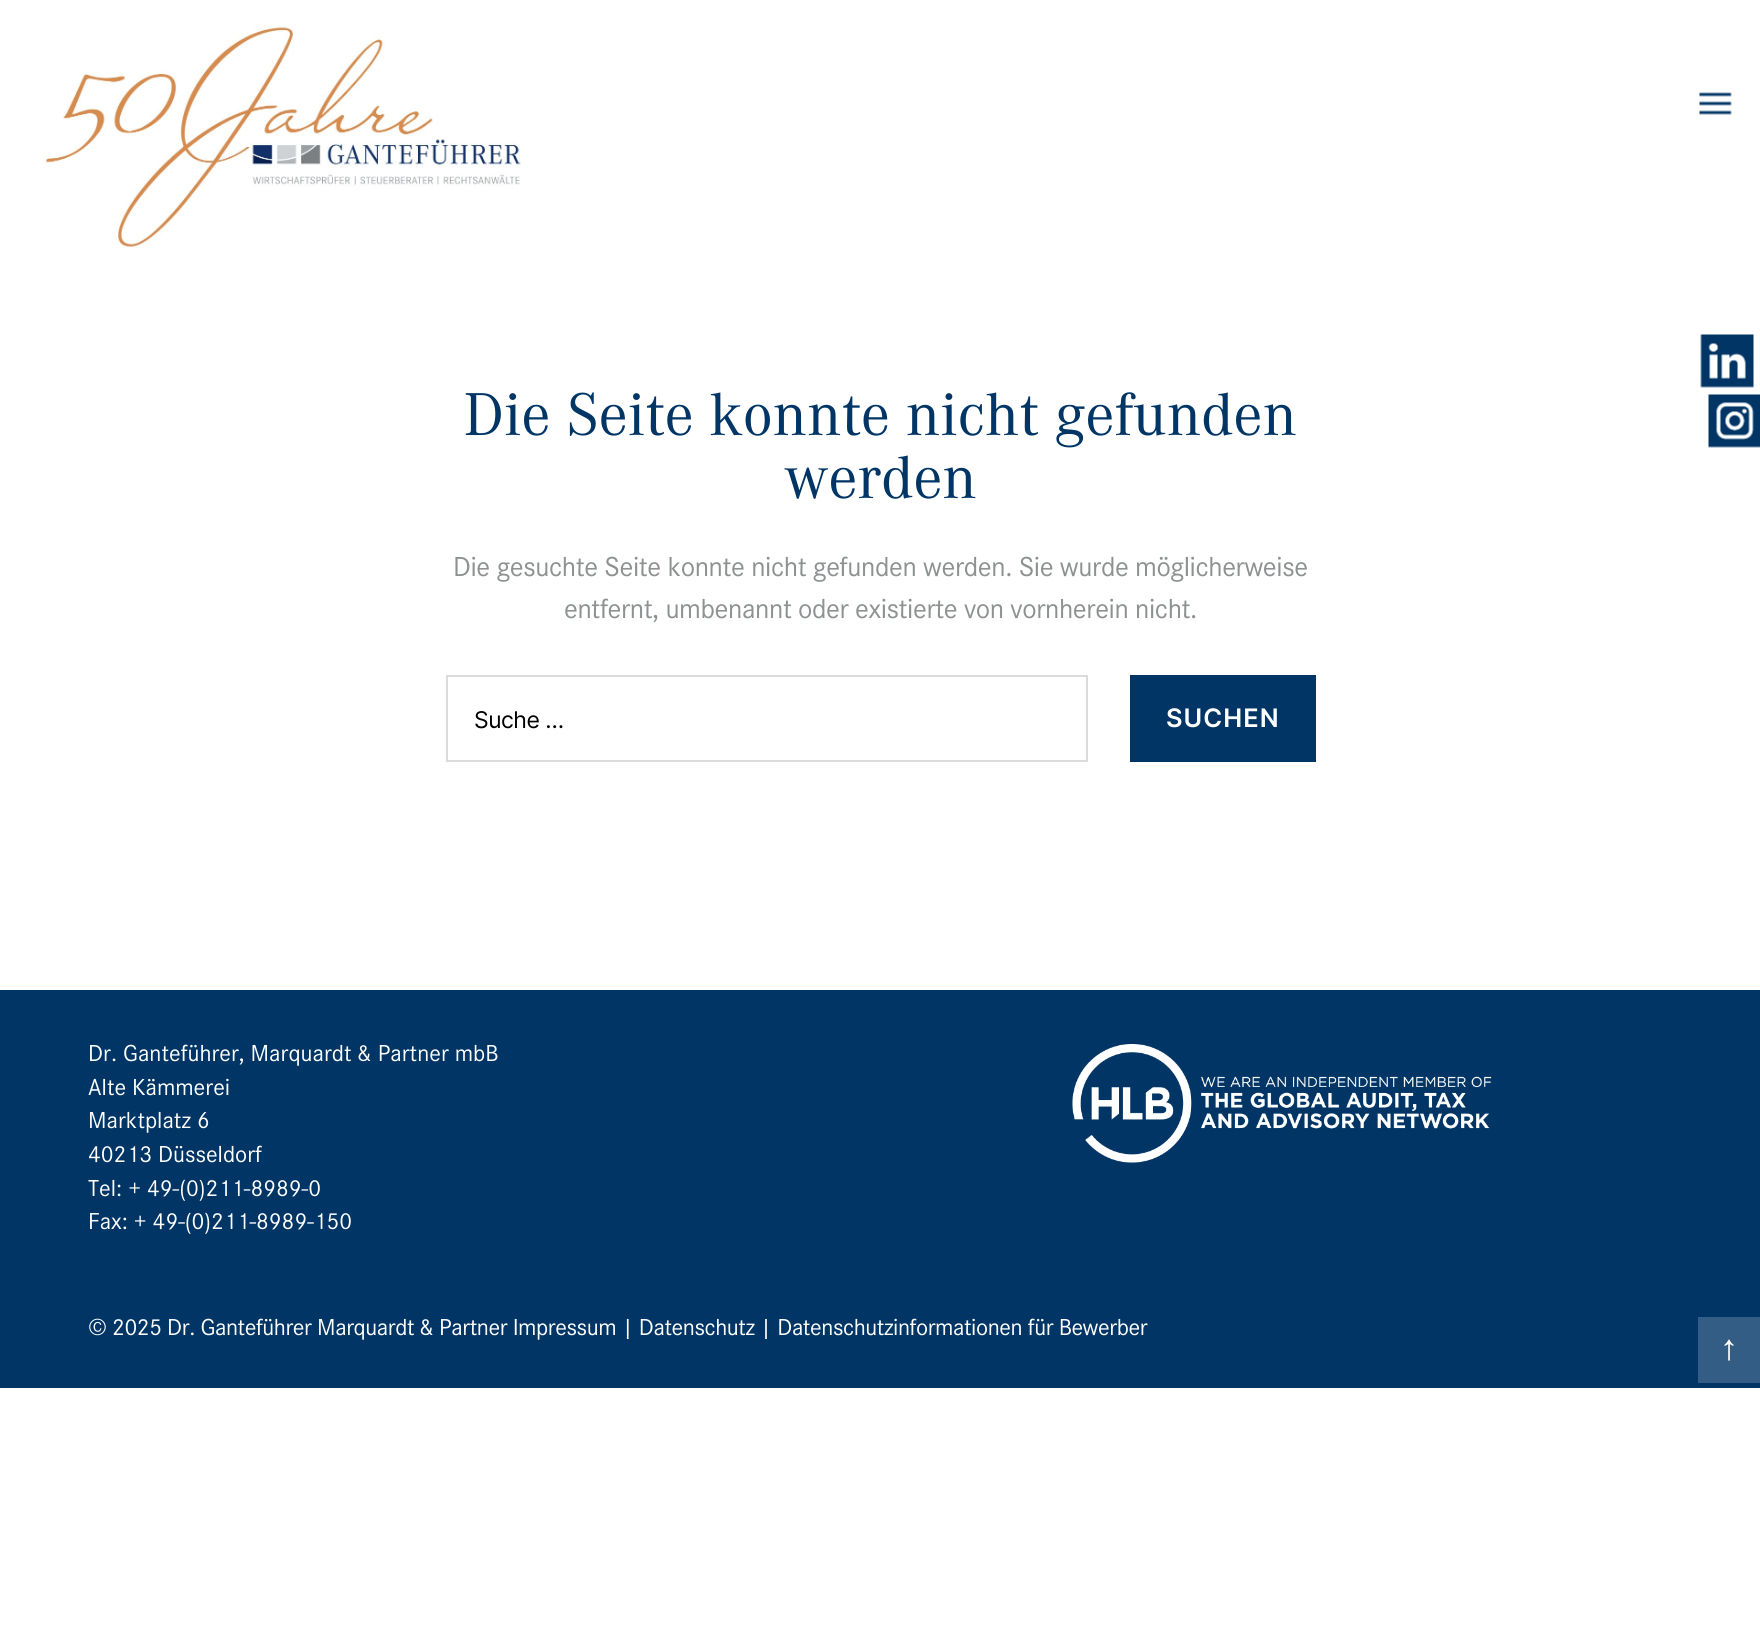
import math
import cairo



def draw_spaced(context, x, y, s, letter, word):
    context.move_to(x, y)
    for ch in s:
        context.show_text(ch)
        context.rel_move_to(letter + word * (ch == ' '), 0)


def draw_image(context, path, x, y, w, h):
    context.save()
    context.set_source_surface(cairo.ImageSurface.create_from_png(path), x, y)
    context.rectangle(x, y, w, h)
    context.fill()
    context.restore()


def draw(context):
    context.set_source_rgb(1, 1, 1)
    context.paint()
    draw_image(context, "images/1.png", 45, 26, 476, 222)
    draw_image(context, "images/2.png", 1699, 92, 33, 23)
    context.rectangle(447, 676, 640, 85)
    context.set_source_rgb(219 / 255, 219 / 255, 219 / 255)
    context.stroke()
    context.set_source_rgb(0, 53 / 255, 101 / 255)
    context.rectangle(1130, 675, 186, 87)
    context.fill()
    context.rectangle(0, 990, 1760, 398)
    context.fill()
    draw_image(context, "images/3.png", 1700, 334, 54, 54)
    draw_image(context, "images/4.png", 1708, 394, 52, 54)
    draw_image(context, "images/5.png", 1072, 1044, 420, 119)
    context.set_source_rgb(51 / 255, 93 / 255, 132 / 255)
    context.rectangle(1698, 1317, 62, 66)
    context.fill()
    context.select_font_face("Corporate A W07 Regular")
    context.set_font_size(62.75)
    context.set_source_rgb(0, 53 / 255, 101 / 255)
    draw_spaced(context, 464, 435, "Die Seite konnte nicht gefunden", 0.1, 0)
    draw_spaced(context, 784, 498, "werden", 0.1, 0)
    context.select_font_face("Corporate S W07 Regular")
    context.set_font_size(28.5)
    context.set_source_rgb(141 / 255, 145 / 255, 145 / 255)
    draw_spaced(context, 453, 576, "Die gesuchte Seite konnte nicht gefunden werden. Sie wurde möglicherweise", -0.43, 0)
    draw_spaced(context, 564, 618, "entfernt, umbenannt oder existierte von vornherein nicht.", -0.43, 0)
    context.select_font_face("Inter")
    context.set_font_size(23)
    context.set_source_rgb(0, 0, 0)
    draw_spaced(context, 474, 728, "Suche …", -0.5, 0)
    context.select_font_face("Inter SemiBold")
    context.set_font_size(25.5)
    context.set_source_rgb(1, 1, 1)
    draw_spaced(context, 1166, 727, "SUCHEN", 1, 0)
    context.select_font_face("Corporate S W07 Regular")
    context.set_font_size(24)
    context.move_to(88, 1061)
    context.show_text("Dr. Ganteführer, Marquardt & Partner mbB")
    context.move_to(88, 1095)
    context.show_text("Alte Kämmerei")
    context.move_to(88, 1128)
    context.show_text("Marktplatz 6")
    context.move_to(88, 1162)
    context.show_text("40213 Düsseldorf")
    context.move_to(88, 1196)
    context.show_text("Tel: + 49-(0)211-8989-0")
    context.move_to(88, 1229)
    context.show_text("Fax: + 49-(0)211-8989-150")
    draw_spaced(context, 88, 1335, "© 2025 Dr. Ganteführer Marquardt & Partner Impressum | Datenschutz | Datenschutzinformationen für Bewerber", -0.43, 0)
    context.set_font_size(33)
    draw_spaced(context, 1718, 1361, "↑", -0.43, 0)


surface = cairo.ImageSurface(cairo.Format.RGB24, 1760, 1629)
context = cairo.Context(surface)
options = cairo.FontOptions()
options.set_hint_metrics(cairo.HintMetrics.OFF)
options.set_hint_style(cairo.HintStyle.NONE)
context.set_font_options(options)
context.set_miter_limit(4)
draw(context)
surface.write_to_png("out.png")
